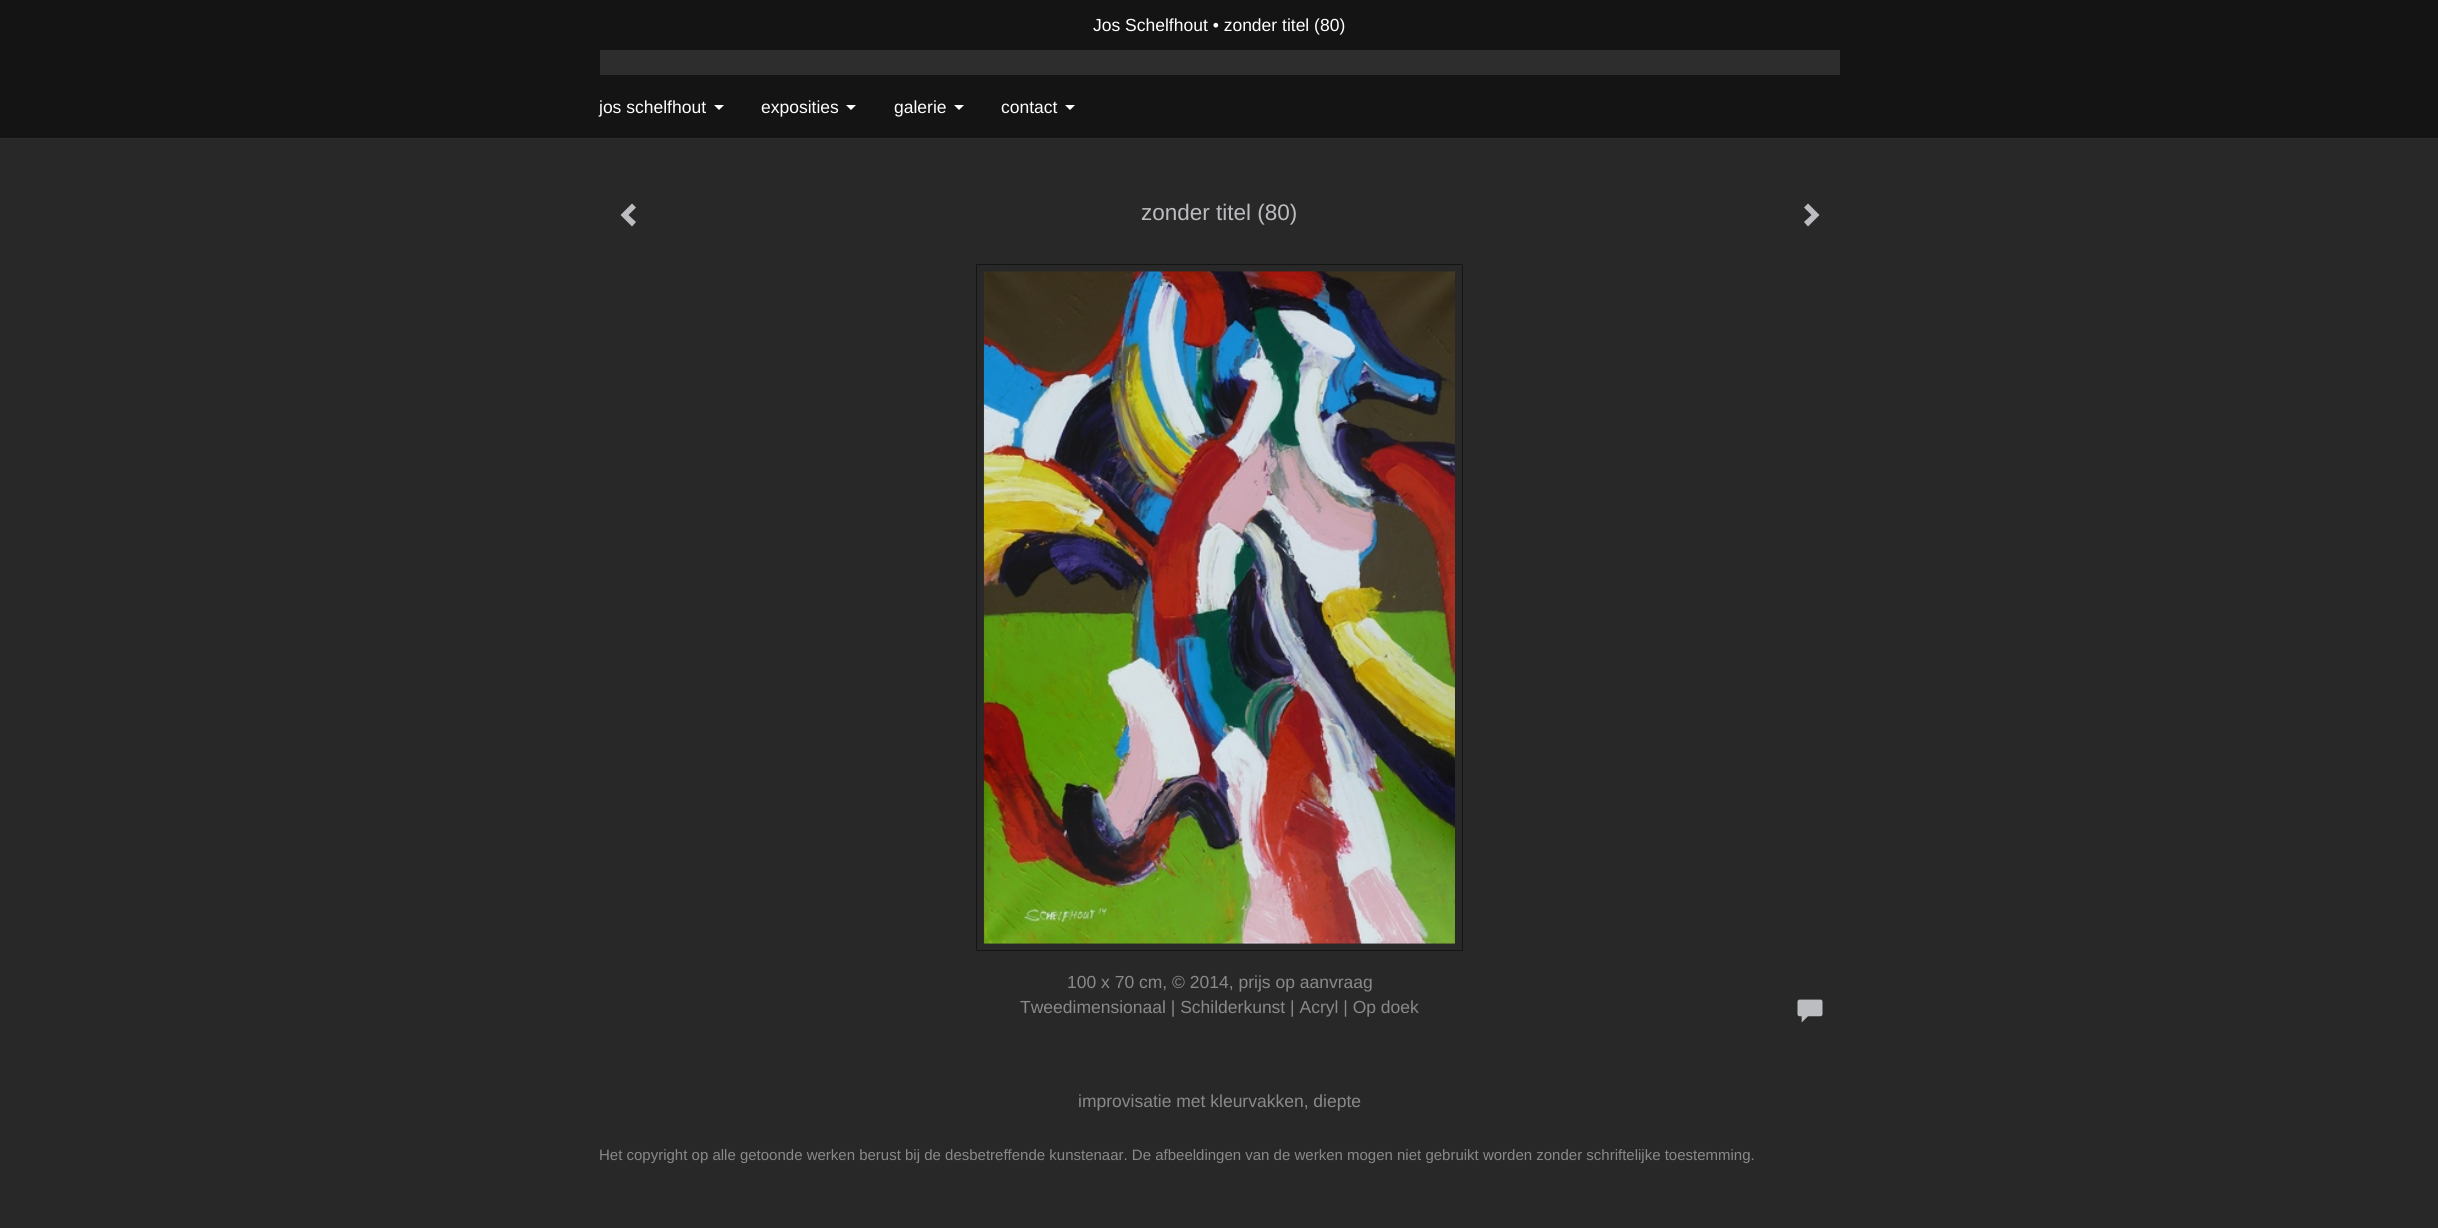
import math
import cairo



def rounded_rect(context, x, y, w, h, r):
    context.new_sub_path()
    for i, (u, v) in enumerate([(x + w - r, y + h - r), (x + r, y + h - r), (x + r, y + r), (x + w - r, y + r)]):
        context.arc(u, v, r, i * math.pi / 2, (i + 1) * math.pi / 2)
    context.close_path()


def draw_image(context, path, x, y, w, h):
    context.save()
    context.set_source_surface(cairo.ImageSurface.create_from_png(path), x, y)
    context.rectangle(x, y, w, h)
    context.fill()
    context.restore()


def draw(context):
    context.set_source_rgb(40 / 255, 40 / 255, 40 / 255)
    context.paint()
    context.set_source_rgb(20 / 255, 20 / 255, 20 / 255)
    context.rectangle(0, 0, 2438, 138)
    context.fill()
    context.set_source_rgb(45 / 255, 45 / 255, 45 / 255)
    context.rectangle(600, 50, 1240, 25)
    context.fill()
    context.rectangle(0, 138, 2438, 1)
    context.fill()
    context.set_source_rgb(1, 1, 1)
    context.new_path()
    context.move_to(714, 105)
    context.line_to(724, 105)
    context.line_to(719, 110)
    context.close_path()
    context.fill()
    context.new_path()
    context.move_to(846, 105)
    context.line_to(856, 105)
    context.line_to(851, 110)
    context.close_path()
    context.fill()
    context.new_path()
    context.move_to(954, 105)
    context.line_to(964, 105)
    context.line_to(959, 110)
    context.close_path()
    context.fill()
    context.new_path()
    context.move_to(1065, 105)
    context.line_to(1075, 105)
    context.line_to(1070, 110)
    context.close_path()
    context.fill()
    context.set_source_rgb(188 / 255, 189 / 255, 192 / 255)
    context.new_path()
    context.move_to(636, 207.5)
    context.line_to(628.5, 215)
    context.line_to(636, 222)
    context.line_to(632, 226.5)
    context.line_to(620.5, 215)
    context.line_to(632, 203.5)
    context.close_path()
    context.fill()
    context.new_path()
    context.move_to(1819.5, 215)
    context.line_to(1808, 226.5)
    context.line_to(1804, 222)
    context.line_to(1811.5, 215)
    context.line_to(1804, 207.5)
    context.line_to(1808, 203.5)
    context.close_path()
    context.fill()
    rounded_rect(context, 976.5, 264.5, 486, 686, 0.5)
    context.set_source_rgb(20 / 255, 20 / 255, 20 / 255)
    context.set_line_width(1)
    context.stroke()
    draw_image(context, "images/1.png", 983, 271, 472, 673)
    draw_image(context, "images/2.png", 1797, 999, 26, 24)
    context.select_font_face("Liberation Sans")
    context.set_font_size(17.5)
    context.set_source_rgb(1, 1, 1)
    context.move_to(1093, 31)
    context.show_text("Jos Schelfhout • zonder titel (80)")
    context.move_to(599, 113)
    context.show_text("jos schelfhout")
    context.move_to(761, 113)
    context.show_text("exposities")
    context.move_to(894, 113)
    context.show_text("galerie")
    context.move_to(1001, 113)
    context.show_text("contact")
    context.set_font_size(22.5)
    context.set_source_rgb(188 / 255, 189 / 255, 192 / 255)
    context.move_to(1141, 220)
    context.show_text("zonder titel (80)")
    context.set_font_size(17.5)
    context.set_source_rgb(137 / 255, 137 / 255, 139 / 255)
    context.move_to(1067, 988)
    context.show_text("100 x 70 cm, © 2014, prijs op aanvraag")
    context.move_to(1020, 1013)
    context.show_text("Tweedimensionaal | Schilderkunst | Acryl | Op doek")
    context.move_to(1078, 1107)
    context.show_text("improvisatie met kleurvakken, diepte")
    context.set_font_size(15)
    context.move_to(599, 1160)
    context.show_text("Het copyright op alle getoonde werken berust bij de desbetreffende kunstenaar. De afbeeldingen van de werken mogen niet gebruikt worden zonder schriftelijke toestemming.")


surface = cairo.ImageSurface(cairo.Format.RGB24, 2438, 1228)
context = cairo.Context(surface)
options = cairo.FontOptions()
options.set_hint_metrics(cairo.HintMetrics.OFF)
options.set_hint_style(cairo.HintStyle.NONE)
context.set_font_options(options)
context.set_miter_limit(4)
draw(context)
surface.write_to_png("out.png")
